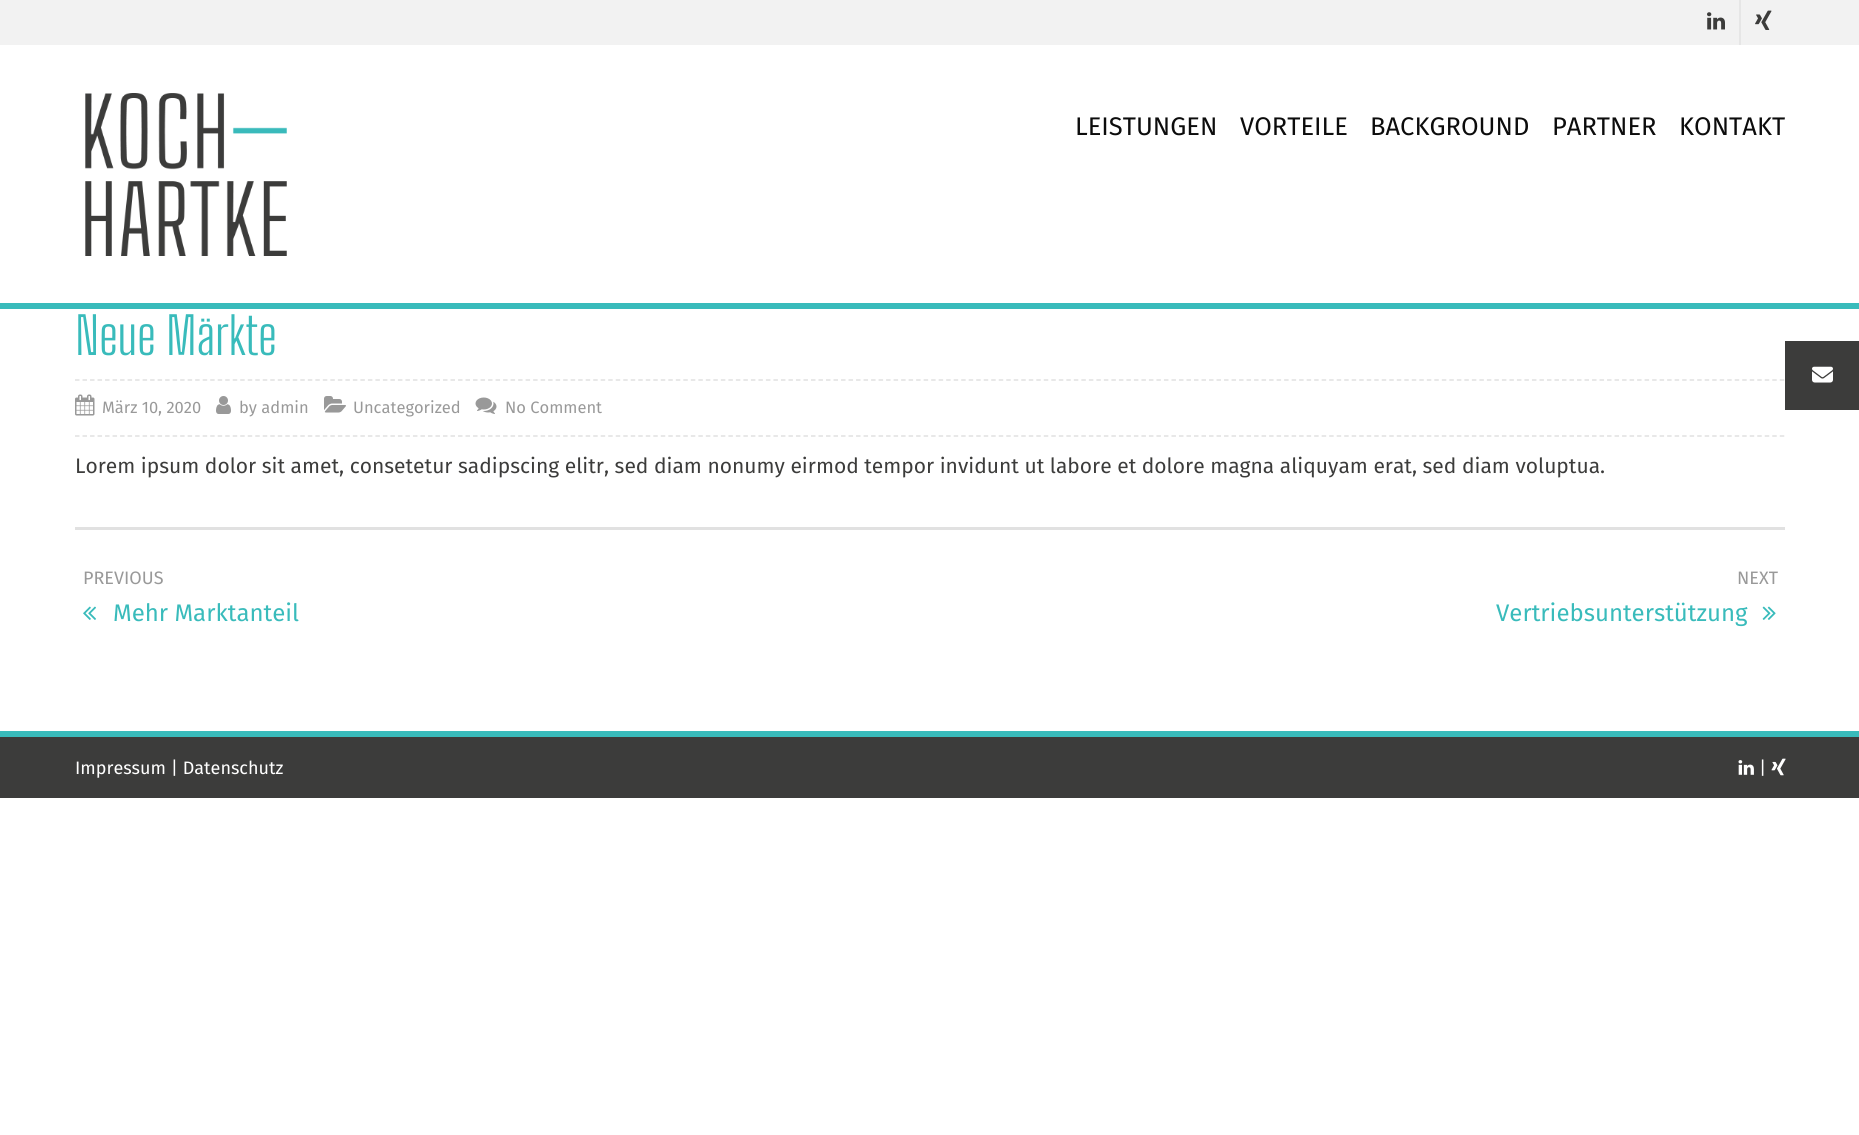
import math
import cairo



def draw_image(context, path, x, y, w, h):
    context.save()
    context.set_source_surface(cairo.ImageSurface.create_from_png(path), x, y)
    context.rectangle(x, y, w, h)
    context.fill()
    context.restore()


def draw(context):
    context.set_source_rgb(1, 1, 1)
    context.paint()
    context.set_source_rgb(242 / 255, 242 / 255, 242 / 255)
    context.rectangle(0, 0, 1859, 45)
    context.fill()
    context.set_source_rgb(230 / 255, 230 / 255, 230 / 255)
    context.rectangle(1739, 0, 2, 45)
    context.fill()
    draw_image(context, "images/1.png", 1707, 12, 18, 18)
    draw_image(context, "images/2.png", 1755, 10, 17, 20)
    context.set_source_rgb(57 / 255, 187 / 255, 187 / 255)
    context.rectangle(0, 303, 1859, 6)
    context.fill()
    draw_image(context, "images/3.png", 85, 93, 202, 163)
    context.new_path()
    context.move_to(75, 380)
    context.line_to(1785, 380)
    context.set_source_rgb(225 / 255, 225 / 255, 225 / 255)
    context.set_line_width(1.5)
    context.set_dash([4.5, 3.01])
    context.stroke()
    context.new_path()
    context.move_to(75, 436)
    context.line_to(1785, 436)
    context.stroke()
    draw_image(context, "images/4.png", 75, 394, 20, 22)
    draw_image(context, "images/5.png", 216, 396, 15, 18)
    draw_image(context, "images/6.png", 324, 396, 22, 17)
    draw_image(context, "images/7.png", 475, 397, 22, 17)
    context.rectangle(75, 527, 1710, 3)
    context.fill()
    draw_image(context, "images/8.png", 83, 606, 13, 14)
    draw_image(context, "images/9.png", 1762, 606, 14, 14)
    context.set_source_rgb(57 / 255, 187 / 255, 187 / 255)
    context.rectangle(0, 731, 1859, 6)
    context.fill()
    context.set_source_rgb(60 / 255, 60 / 255, 59 / 255)
    context.rectangle(0, 737, 1859, 61)
    context.fill()
    draw_image(context, "images/10.png", 1738, 760, 16, 15)
    draw_image(context, "images/11.png", 1771, 758, 15, 18)
    context.rectangle(1785, 341, 74, 69)
    context.fill()
    draw_image(context, "images/12.png", 1812, 366, 21, 17)
    context.select_font_face("Fira Sans")
    context.set_font_size(25.5)
    context.set_source_rgb(12 / 255, 12 / 255, 12 / 255)
    context.move_to(1075, 135)
    context.show_text("LEISTUNGEN")
    context.move_to(1240, 135)
    context.show_text("VORTEILE")
    context.move_to(1370, 135)
    context.show_text("BACKGROUND")
    context.move_to(1552, 135)
    context.show_text("PARTNER")
    context.move_to(1679, 135)
    context.show_text("KONTAKT")
    context.select_font_face("Big Shoulders Text Thin")
    context.set_font_size(51)
    context.set_source_rgb(57 / 255, 187 / 255, 187 / 255)
    context.move_to(75, 355)
    context.show_text("Neue Märkte")
    context.select_font_face("Fira Sans")
    context.set_font_size(16.5)
    context.set_source_rgb(153 / 255, 153 / 255, 153 / 255)
    context.move_to(102, 413)
    context.show_text("März 10, 2020")
    context.move_to(239, 413)
    context.show_text("by admin")
    context.move_to(353, 413)
    context.show_text("Uncategorized")
    context.move_to(505, 413)
    context.show_text("No Comment")
    context.set_font_size(21)
    context.set_source_rgb(60 / 255, 60 / 255, 59 / 255)
    context.move_to(75, 473)
    context.show_text("Lorem ipsum dolor sit amet, consetetur sadipscing elitr, sed diam nonumy eirmod tempor invidunt ut labore et dolore magna aliquyam erat, sed diam voluptua.")
    context.set_font_size(18)
    context.set_source_rgb(153 / 255, 153 / 255, 153 / 255)
    context.move_to(83, 584)
    context.show_text("PREVIOUS")
    context.set_font_size(24)
    context.set_source_rgb(57 / 255, 187 / 255, 187 / 255)
    context.move_to(113, 621)
    context.show_text("Mehr Marktanteil")
    context.set_font_size(18)
    context.set_source_rgb(153 / 255, 153 / 255, 153 / 255)
    context.move_to(1737, 584)
    context.show_text("NEXT")
    context.set_font_size(24)
    context.set_source_rgb(57 / 255, 187 / 255, 187 / 255)
    context.move_to(1496, 621)
    context.show_text("Vertriebsunterstützung")
    context.set_font_size(18)
    context.set_source_rgb(1, 1, 1)
    context.move_to(75, 774)
    context.show_text("Impressum | Datenschutz")
    context.move_to(1759, 774)
    context.show_text("|")


surface = cairo.ImageSurface(cairo.Format.RGB24, 1859, 1135)
context = cairo.Context(surface)
options = cairo.FontOptions()
options.set_hint_metrics(cairo.HintMetrics.OFF)
options.set_hint_style(cairo.HintStyle.NONE)
context.set_font_options(options)
context.set_miter_limit(4)
draw(context)
surface.write_to_png("out.png")
